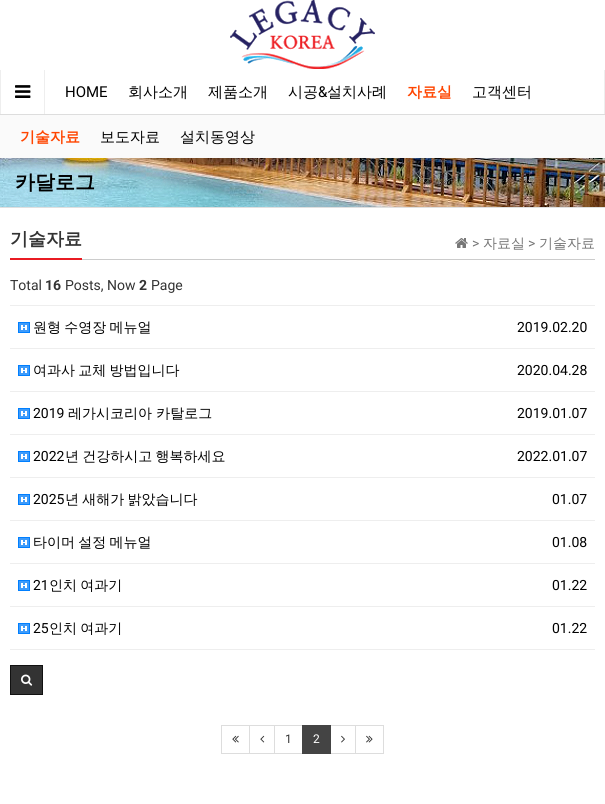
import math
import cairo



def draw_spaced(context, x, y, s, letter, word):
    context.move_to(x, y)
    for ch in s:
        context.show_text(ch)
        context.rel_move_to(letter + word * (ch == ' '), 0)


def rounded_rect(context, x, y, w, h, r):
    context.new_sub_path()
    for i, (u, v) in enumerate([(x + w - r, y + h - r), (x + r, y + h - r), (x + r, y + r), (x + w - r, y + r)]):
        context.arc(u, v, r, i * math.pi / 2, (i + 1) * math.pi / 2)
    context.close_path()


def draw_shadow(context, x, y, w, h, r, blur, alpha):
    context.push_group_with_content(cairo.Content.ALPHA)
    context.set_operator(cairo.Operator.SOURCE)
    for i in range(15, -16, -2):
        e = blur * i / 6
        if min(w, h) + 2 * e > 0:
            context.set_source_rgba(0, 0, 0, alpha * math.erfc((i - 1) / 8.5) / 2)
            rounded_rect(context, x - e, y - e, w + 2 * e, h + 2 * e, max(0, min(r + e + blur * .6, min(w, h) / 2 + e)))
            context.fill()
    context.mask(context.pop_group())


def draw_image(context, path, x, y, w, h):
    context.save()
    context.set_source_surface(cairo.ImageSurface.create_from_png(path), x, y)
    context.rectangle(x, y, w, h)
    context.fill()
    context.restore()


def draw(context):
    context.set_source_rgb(1, 1, 1)
    context.paint()
    draw_image(context, "images/1.png", 230, 0, 145, 69)
    draw_image(context, "images/3.png", 0, 158, 605, 49)
    context.save()
    context.rectangle(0, 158, 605, 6)
    context.clip()
    context.set_source_rgb(25 / 255, 25 / 255, 25 / 255)
    draw_shadow(context, 2, 77, 601, 84, 0, 2.5, 0.15)
    context.restore()
    context.set_source_rgb(238 / 255, 238 / 255, 238 / 255)
    context.rectangle(0, 70, 1, 45)
    context.fill()
    draw_image(context, "images/2.png", 15, 85, 16, 13)
    context.rectangle(604, 70, 1, 45)
    context.fill()
    context.rectangle(44, 70, 1, 45)
    context.fill()
    context.set_source_rgb(250 / 255, 250 / 255, 250 / 255)
    context.rectangle(0, 115, 605, 43)
    context.fill()
    context.set_source_rgb(221 / 255, 221 / 255, 221 / 255)
    context.rectangle(0, 114, 605, 1)
    context.fill()
    context.set_source_rgb(223 / 255, 223 / 255, 223 / 255)
    context.rectangle(0, 207, 605, 1)
    context.fill()
    context.set_source_rgb(204 / 255, 204 / 255, 204 / 255)
    context.rectangle(82, 259, 513, 1)
    context.fill()
    context.set_source_rgb(233 / 255, 27 / 255, 35 / 255)
    context.rectangle(10, 258, 72, 2)
    context.fill()
    draw_image(context, "images/4.png", 455, 238, 13, 10)
    context.set_source_rgb(238 / 255, 238 / 255, 238 / 255)
    context.rectangle(10, 305, 585, 1)
    context.fill()
    context.rectangle(10, 348, 585, 1)
    context.fill()
    draw_image(context, "images/5.png", 18, 322, 12, 11)
    context.rectangle(10, 391, 585, 1)
    context.fill()
    draw_image(context, "images/5.png", 18, 365, 12, 11)
    context.rectangle(10, 434, 585, 1)
    context.fill()
    draw_image(context, "images/5.png", 18, 408, 12, 11)
    context.rectangle(10, 477, 585, 1)
    context.fill()
    draw_image(context, "images/5.png", 18, 451, 12, 11)
    context.rectangle(10, 520, 585, 1)
    context.fill()
    draw_image(context, "images/5.png", 18, 494, 12, 11)
    context.rectangle(10, 563, 585, 1)
    context.fill()
    draw_image(context, "images/5.png", 18, 537, 12, 11)
    context.rectangle(10, 606, 585, 1)
    context.fill()
    draw_image(context, "images/5.png", 18, 580, 12, 11)
    context.rectangle(10, 649, 585, 1)
    context.fill()
    draw_image(context, "images/5.png", 18, 623, 12, 11)
    context.set_source_rgb(51 / 255, 51 / 255, 51 / 255)
    context.rectangle(10.5, 665.5, 32, 29)
    context.fill_preserve()
    context.set_source_rgb(17 / 255, 17 / 255, 17 / 255)
    context.set_line_width(1)
    context.stroke()
    draw_image(context, "images/6.png", 21, 674, 12, 12)
    context.rectangle(221.5, 725.5, 28, 28)
    context.set_source_rgb(221 / 255, 221 / 255, 221 / 255)
    context.stroke()
    draw_image(context, "images/7.png", 232, 735, 7, 8)
    context.rectangle(249.5, 725.5, 25, 28)
    context.stroke()
    draw_image(context, "images/8.png", 260, 735, 5, 8)
    context.rectangle(274.5, 725.5, 28, 28)
    context.stroke()
    context.rectangle(330.5, 725.5, 25, 28)
    context.stroke()
    context.set_source_rgb(68 / 255, 68 / 255, 68 / 255)
    context.rectangle(302, 725, 29, 29)
    context.fill()
    draw_image(context, "images/9.png", 341, 735, 4, 8)
    context.rectangle(355.5, 725.5, 28, 28)
    context.set_source_rgb(221 / 255, 221 / 255, 221 / 255)
    context.stroke()
    draw_image(context, "images/10.png", 366, 735, 7, 8)
    context.select_font_face("Roboto")
    context.set_font_size(15)
    context.set_source_rgb(0, 0, 0)
    context.move_to(65, 97)
    context.show_text("HOME")
    context.select_font_face("WenQuanYi Zen Hei Medium")
    context.move_to(128, 97)
    context.show_text("회사소개")
    context.move_to(208, 97)
    context.show_text("제품소개")
    context.move_to(288, 97)
    context.show_text("시공")
    context.select_font_face("Roboto")
    context.move_to(318, 97)
    context.show_text("&")
    context.select_font_face("WenQuanYi Zen Hei Medium")
    context.move_to(327, 97)
    context.show_text("설치사례")
    context.select_font_face("WenQuanYi Zen Hei", cairo.FontSlant.NORMAL, cairo.FontWeight.BOLD)
    context.set_source_rgb(1, 69 / 255, 0)
    context.move_to(407, 97)
    context.show_text("자료실")
    context.select_font_face("WenQuanYi Zen Hei Medium")
    context.set_source_rgb(0, 0, 0)
    context.move_to(472, 97)
    context.show_text("고객센터")
    context.select_font_face("WenQuanYi Zen Hei", cairo.FontSlant.NORMAL, cairo.FontWeight.BOLD)
    context.set_source_rgb(1, 69 / 255, 0)
    context.move_to(20, 142)
    context.show_text("기술자료")
    context.select_font_face("WenQuanYi Zen Hei Medium")
    context.set_source_rgb(0, 0, 0)
    context.move_to(100, 142)
    context.show_text("보도자료")
    context.move_to(180, 142)
    context.show_text("설치동영상")
    context.select_font_face("WenQuanYi Zen Hei", cairo.FontSlant.NORMAL, cairo.FontWeight.BOLD)
    context.set_font_size(20)
    context.move_to(15, 189)
    context.show_text("카달로그")
    context.set_font_size(18)
    context.set_source_rgb(51 / 255, 51 / 255, 51 / 255)
    context.move_to(10, 245)
    context.show_text("기술자료")
    context.select_font_face("Roboto")
    context.set_font_size(14)
    context.set_source_rgb(119 / 255, 119 / 255, 119 / 255)
    context.move_to(472, 248)
    context.show_text(">")
    context.select_font_face("WenQuanYi Zen Hei Medium")
    context.move_to(483, 248)
    context.show_text("자료실")
    context.select_font_face("Roboto")
    context.move_to(528, 248)
    context.show_text(">")
    context.select_font_face("WenQuanYi Zen Hei Medium")
    context.move_to(539, 248)
    context.show_text("기술자료")
    context.select_font_face("Roboto")
    context.set_source_rgb(51 / 255, 51 / 255, 51 / 255)
    context.move_to(10, 290)
    context.show_text("Total")
    context.select_font_face("Roboto", cairo.FontSlant.NORMAL, cairo.FontWeight.BOLD)
    context.move_to(45, 290)
    context.show_text("16")
    context.select_font_face("Roboto")
    context.move_to(65, 290)
    context.show_text("Posts, Now")
    context.select_font_face("Roboto", cairo.FontSlant.NORMAL, cairo.FontWeight.BOLD)
    context.move_to(139, 290)
    context.show_text("2")
    context.select_font_face("Roboto")
    context.move_to(151, 290)
    context.show_text("Page")
    context.select_font_face("WenQuanYi Zen Hei Medium")
    context.set_source_rgb(0, 0, 0)
    draw_spaced(context, 33, 332, "원형 수영장 메뉴얼", 0, -1)
    context.select_font_face("Roboto")
    context.move_to(517, 332)
    context.show_text("2019.02.20")
    context.select_font_face("WenQuanYi Zen Hei Medium")
    draw_spaced(context, 33, 375, "여과사 교체 방법입니다", 0, -1)
    context.select_font_face("Roboto")
    context.move_to(517, 375)
    context.show_text("2020.04.28")
    context.move_to(33, 418)
    context.show_text("2019")
    context.select_font_face("WenQuanYi Zen Hei Medium")
    context.move_to(68, 418)
    context.show_text("레가시코리아 카탈로그")
    context.select_font_face("Roboto")
    context.move_to(517, 418)
    context.show_text("2019.01.07")
    context.move_to(33, 461)
    context.show_text("2022")
    context.select_font_face("WenQuanYi Zen Hei Medium")
    draw_spaced(context, 65, 461, "년 건강하시고 행복하세요", 0, -1)
    context.select_font_face("Roboto")
    context.move_to(517, 461)
    context.show_text("2022.01.07")
    context.move_to(33, 504)
    context.show_text("2025")
    context.select_font_face("WenQuanYi Zen Hei Medium")
    draw_spaced(context, 65, 504, "년 새해가 밝았습니다", 0, -1)
    context.select_font_face("Roboto")
    context.move_to(552, 504)
    context.show_text("01.07")
    context.select_font_face("WenQuanYi Zen Hei Medium")
    draw_spaced(context, 33, 547, "타이머 설정 메뉴얼", 0, -1)
    context.select_font_face("Roboto")
    context.move_to(552, 547)
    context.show_text("01.08")
    context.move_to(33, 590)
    context.show_text("21")
    context.select_font_face("WenQuanYi Zen Hei Medium")
    draw_spaced(context, 49, 590, "인치 여과기", 0, -1)
    context.select_font_face("Roboto")
    context.move_to(552, 590)
    context.show_text("01.22")
    context.move_to(33, 633)
    context.show_text("25")
    context.select_font_face("WenQuanYi Zen Hei Medium")
    draw_spaced(context, 49, 633, "인치 여과기", 0, -1)
    context.select_font_face("Roboto")
    context.move_to(552, 633)
    context.show_text("01.22")
    context.set_font_size(12)
    context.set_source_rgb(51 / 255, 51 / 255, 51 / 255)
    context.move_to(285, 743)
    context.show_text("1")
    context.set_source_rgb(1, 1, 1)
    context.move_to(313, 743)
    context.show_text("2")


surface = cairo.ImageSurface(cairo.Format.RGB24, 605, 804)
context = cairo.Context(surface)
options = cairo.FontOptions()
options.set_hint_metrics(cairo.HintMetrics.OFF)
options.set_hint_style(cairo.HintStyle.NONE)
context.set_font_options(options)
context.set_miter_limit(4)
draw(context)
surface.write_to_png("out.png")
